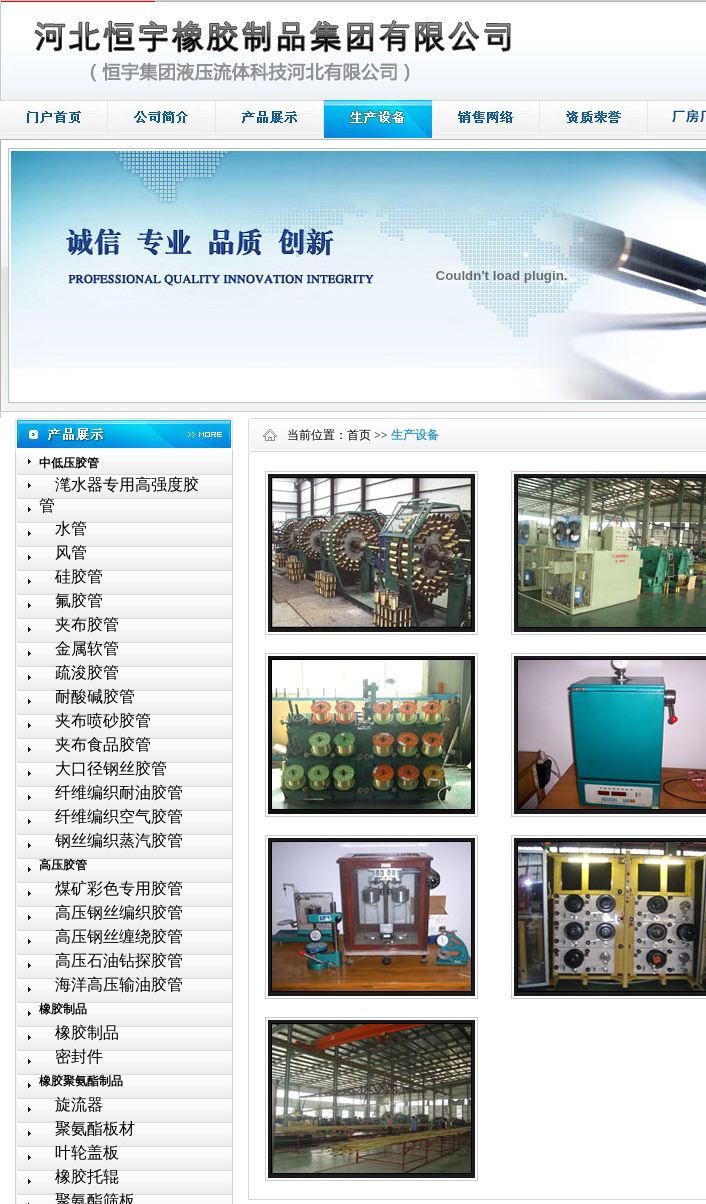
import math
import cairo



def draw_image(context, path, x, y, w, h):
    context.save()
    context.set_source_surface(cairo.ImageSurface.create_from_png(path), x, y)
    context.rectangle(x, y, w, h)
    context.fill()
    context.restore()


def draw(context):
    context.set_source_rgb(1, 1, 1)
    context.paint()
    draw_image(context, "images/1.png", 0, 0, 706, 100)
    draw_image(context, "images/2.png", 0, 100, 108, 39)
    draw_image(context, "images/3.png", 108, 100, 108, 39)
    draw_image(context, "images/4.png", 216, 100, 108, 39)
    draw_image(context, "images/5.png", 324, 100, 108, 39)
    draw_image(context, "images/6.png", 432, 100, 108, 39)
    draw_image(context, "images/7.png", 540, 100, 108, 39)
    draw_image(context, "images/8.png", 648, 100, 58, 39)
    draw_image(context, "images/9.png", 0, 139, 706, 272)
    draw_image(context, "images/10.png", 436, 266, 137, 18)
    draw_image(context, "images/11.png", 0, 411, 706, 7)
    draw_image(context, "images/12.png", 248, 418, 458, 35)
    context.set_source_rgb(214 / 255, 214 / 255, 214 / 255)
    context.rectangle(248, 1199, 458, 1)
    context.fill()
    context.rectangle(248, 453, 1, 747)
    context.fill()
    draw_image(context, "images/13.png", 265, 471, 213, 164)
    draw_image(context, "images/14.png", 511, 471, 195, 164)
    draw_image(context, "images/15.png", 265, 653, 213, 164)
    draw_image(context, "images/16.png", 511, 653, 195, 164)
    draw_image(context, "images/17.png", 265, 835, 213, 164)
    draw_image(context, "images/18.png", 511, 835, 195, 164)
    draw_image(context, "images/19.png", 265, 1017, 213, 164)
    draw_image(context, "images/20.png", 15, 418, 218, 33)
    draw_image(context, "images/21.png", 15, 451, 218, 753)
    context.select_font_face("WenQuanYi Zen Hei Medium")
    context.set_font_size(12)
    context.set_source_rgb(0, 0, 0)
    context.move_to(287, 439)
    context.show_text("当前位置：首页")
    context.select_font_face("Liberation Serif")
    context.move_to(374, 439)
    context.show_text(">>")
    context.select_font_face("WenQuanYi Zen Hei", cairo.FontSlant.NORMAL, cairo.FontWeight.BOLD)
    context.set_source_rgb(51 / 255, 153 / 255, 204 / 255)
    context.move_to(391, 439)
    context.show_text("生产设备")
    context.set_source_rgb(0, 0, 0)
    context.move_to(39, 467)
    context.show_text("中低压胶管")
    context.select_font_face("WenQuanYi Zen Hei Medium")
    context.set_font_size(16)
    context.move_to(55, 490)
    context.show_text("滗水器专用高强度胶")
    context.move_to(39, 511)
    context.show_text("管")
    context.move_to(55, 534)
    context.show_text("水管")
    context.move_to(55, 558)
    context.show_text("风管")
    context.move_to(55, 582)
    context.show_text("硅胶管")
    context.move_to(55, 606)
    context.show_text("氟胶管")
    context.move_to(55, 630)
    context.show_text("夹布胶管")
    context.move_to(55, 654)
    context.show_text("金属软管")
    context.move_to(55, 678)
    context.show_text("疏浚胶管")
    context.move_to(55, 702)
    context.show_text("耐酸碱胶管")
    context.move_to(55, 726)
    context.show_text("夹布喷砂胶管")
    context.move_to(55, 750)
    context.show_text("夹布食品胶管")
    context.move_to(55, 774)
    context.show_text("大口径钢丝胶管")
    context.move_to(55, 798)
    context.show_text("纤维编织耐油胶管")
    context.move_to(55, 822)
    context.show_text("纤维编织空气胶管")
    context.move_to(55, 846)
    context.show_text("钢丝编织蒸汽胶管")
    context.select_font_face("WenQuanYi Zen Hei", cairo.FontSlant.NORMAL, cairo.FontWeight.BOLD)
    context.set_font_size(12)
    context.move_to(39, 869)
    context.show_text("高压胶管")
    context.select_font_face("WenQuanYi Zen Hei Medium")
    context.set_font_size(16)
    context.move_to(55, 894)
    context.show_text("煤矿彩色专用胶管")
    context.move_to(55, 918)
    context.show_text("高压钢丝编织胶管")
    context.move_to(55, 942)
    context.show_text("高压钢丝缠绕胶管")
    context.move_to(55, 966)
    context.show_text("高压石油钻探胶管")
    context.move_to(55, 990)
    context.show_text("海洋高压输油胶管")
    context.select_font_face("WenQuanYi Zen Hei", cairo.FontSlant.NORMAL, cairo.FontWeight.BOLD)
    context.set_font_size(12)
    context.move_to(39, 1013)
    context.show_text("橡胶制品")
    context.select_font_face("WenQuanYi Zen Hei Medium")
    context.set_font_size(16)
    context.move_to(55, 1038)
    context.show_text("橡胶制品")
    context.move_to(55, 1062)
    context.show_text("密封件")
    context.select_font_face("WenQuanYi Zen Hei", cairo.FontSlant.NORMAL, cairo.FontWeight.BOLD)
    context.set_font_size(12)
    context.move_to(39, 1085)
    context.show_text("橡胶聚氨酯制品")
    context.select_font_face("WenQuanYi Zen Hei Medium")
    context.set_font_size(16)
    context.move_to(55, 1110)
    context.show_text("旋流器")
    context.move_to(55, 1134)
    context.show_text("聚氨酯板材")
    context.move_to(55, 1158)
    context.show_text("叶轮盖板")
    context.move_to(55, 1182)
    context.show_text("橡胶托辊")
    context.move_to(55, 1206)
    context.show_text("聚氨酯筛板")


surface = cairo.ImageSurface(cairo.Format.RGB24, 706, 1204)
context = cairo.Context(surface)
options = cairo.FontOptions()
options.set_hint_metrics(cairo.HintMetrics.OFF)
options.set_hint_style(cairo.HintStyle.NONE)
context.set_font_options(options)
context.set_miter_limit(4)
draw(context)
surface.write_to_png("out.png")
